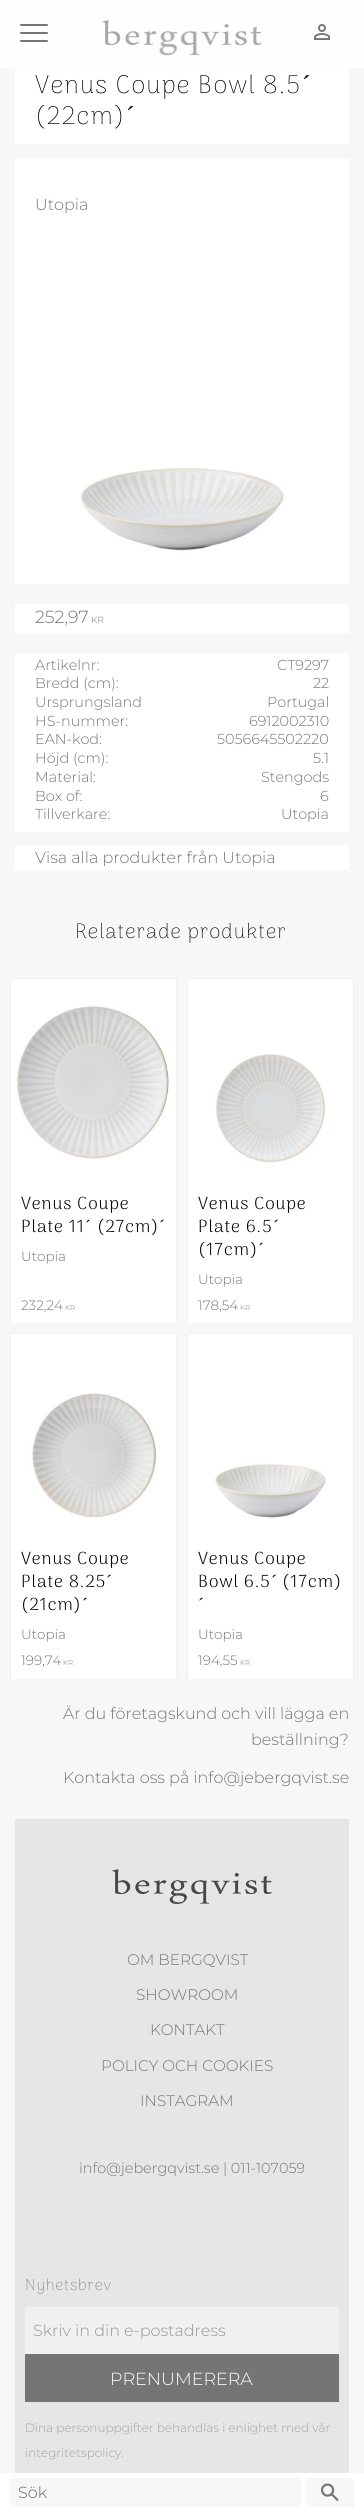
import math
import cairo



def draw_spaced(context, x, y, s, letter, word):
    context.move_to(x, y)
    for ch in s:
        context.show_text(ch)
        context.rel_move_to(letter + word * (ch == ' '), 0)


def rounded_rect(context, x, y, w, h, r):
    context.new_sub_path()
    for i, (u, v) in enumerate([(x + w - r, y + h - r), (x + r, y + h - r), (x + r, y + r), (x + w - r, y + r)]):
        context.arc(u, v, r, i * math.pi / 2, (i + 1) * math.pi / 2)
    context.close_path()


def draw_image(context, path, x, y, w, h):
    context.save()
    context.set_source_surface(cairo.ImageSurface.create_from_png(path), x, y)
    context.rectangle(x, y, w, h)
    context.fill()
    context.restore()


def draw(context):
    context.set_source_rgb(247 / 255, 247 / 255, 247 / 255)
    context.paint()
    context.set_source_rgb(1, 1, 1)
    context.rectangle(0, 2473, 364, 39)
    context.fill()
    context.set_source_rgb(254 / 255, 254 / 255, 254 / 255)
    context.rectangle(0, 0, 364, 68)
    context.fill()
    context.set_source_rgb(1, 1, 1)
    context.rectangle(15, 68, 334, 76)
    context.fill()
    context.rectangle(15, 159, 334, 425)
    context.fill()
    draw_image(context, "images/1.png", 80, 466, 204, 85)
    context.rectangle(15, 604, 334, 29)
    context.fill()
    context.rectangle(15, 653, 334, 179)
    context.fill()
    context.rectangle(15, 845, 334, 25)
    context.fill()
    context.set_source_rgb(242 / 255, 241 / 255, 240 / 255)
    context.rectangle(10, 978, 167, 1)
    context.fill()
    context.rectangle(176, 978, 1, 345)
    context.fill()
    context.rectangle(10, 978, 1, 345)
    context.fill()
    context.set_source_rgb(1, 1, 1)
    context.rectangle(11, 979, 165, 344)
    context.fill()
    draw_image(context, "images/2.png", 16, 1005, 154, 155)
    context.set_source_rgb(242 / 255, 241 / 255, 240 / 255)
    context.rectangle(187, 978, 167, 1)
    context.fill()
    context.rectangle(353, 978, 1, 345)
    context.fill()
    context.rectangle(187, 978, 1, 345)
    context.fill()
    context.set_source_rgb(1, 1, 1)
    context.rectangle(188, 979, 165, 344)
    context.fill()
    draw_image(context, "images/3.png", 215, 1054, 111, 110)
    context.set_source_rgb(242 / 255, 241 / 255, 240 / 255)
    context.rectangle(10, 1333, 167, 1)
    context.fill()
    context.rectangle(176, 1333, 1, 346)
    context.fill()
    context.rectangle(10, 1333, 1, 346)
    context.fill()
    context.set_source_rgb(1, 1, 1)
    context.rectangle(11, 1334, 165, 345)
    context.fill()
    draw_image(context, "images/4.png", 30, 1393, 127, 125)
    context.set_source_rgb(242 / 255, 241 / 255, 240 / 255)
    context.rectangle(187, 1333, 167, 1)
    context.fill()
    context.rectangle(353, 1333, 1, 346)
    context.fill()
    context.rectangle(187, 1333, 1, 346)
    context.fill()
    context.set_source_rgb(1, 1, 1)
    context.rectangle(188, 1334, 165, 345)
    context.fill()
    draw_image(context, "images/5.png", 215, 1463, 111, 56)
    context.set_source_rgb(230 / 255, 230 / 255, 230 / 255)
    context.rectangle(15, 1819, 334, 654)
    context.fill()
    draw_image(context, "images/6.png", 112, 1869, 160, 35)
    context.set_source_rgb(240 / 255, 240 / 255, 240 / 255)
    context.rectangle(25, 2307, 314, 47)
    context.fill()
    context.set_source_rgb(117 / 255, 117 / 255, 117 / 255)
    context.rectangle(25, 2354, 314, 48)
    context.fill()
    rounded_rect(context, 20, 32, 28, 2, 1)
    context.fill()
    rounded_rect(context, 20, 24, 28, 2, 1)
    context.fill()
    rounded_rect(context, 20, 40, 28, 2, 1)
    context.fill()
    draw_image(context, "images/7.png", 102, 20, 160, 36)
    draw_image(context, "images/8.png", 314, 24, 16, 16)
    context.set_source_rgb(247 / 255, 247 / 255, 247 / 255)
    context.rectangle(10, 2478, 291, 29)
    context.fill()
    context.rectangle(306, 2478, 48, 29)
    context.fill()
    draw_image(context, "images/9.png", 321, 2483, 18, 18)
    context.select_font_face("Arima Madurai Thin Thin")
    context.set_font_size(25.6)
    context.set_source_rgb(0, 0, 0)
    draw_spaced(context, 35, 93, "Venus Coupe Bowl 8.5", 1.25, 0)
    context.select_font_face("Liberation Serif")
    draw_spaced(context, 302, 93, "´", 1.25, 0)
    context.select_font_face("Arima Madurai Thin Thin")
    draw_spaced(context, 35, 124, "(22cm)", 1.25, 0)
    context.select_font_face("Liberation Serif")
    draw_spaced(context, 126, 124, "´", 1.25, 0)
    context.select_font_face("Montserrat Light")
    context.set_font_size(16)
    context.set_source_rgb(117 / 255, 117 / 255, 117 / 255)
    context.move_to(35, 210)
    context.show_text("Utopia")
    context.set_font_size(17.5)
    context.move_to(35, 623)
    context.show_text("252,97")
    context.set_font_size(9)
    context.move_to(91, 623)
    context.show_text("KR")
    context.set_font_size(14.4)
    context.move_to(35, 670)
    context.show_text("Artikelnr:")
    context.move_to(277, 670)
    context.show_text("CT9297")
    context.move_to(35, 688)
    context.show_text("Bredd (cm):")
    context.move_to(313, 688)
    context.show_text("22")
    context.move_to(35, 707)
    context.show_text("Ursprungsland")
    context.move_to(267, 707)
    context.show_text("Portugal")
    context.move_to(35, 726)
    context.show_text("HS-nummer:")
    context.move_to(249, 726)
    context.show_text("6912002310")
    context.move_to(35, 744)
    context.show_text("EAN-kod:")
    context.move_to(217, 744)
    context.show_text("5056645502220")
    context.move_to(35, 763)
    context.show_text("Höjd (cm):")
    context.move_to(313, 763)
    context.show_text("5.1")
    context.move_to(35, 782)
    context.show_text("Material:")
    context.move_to(261, 782)
    context.show_text("Stengods")
    context.move_to(35, 801)
    context.show_text("Box of:")
    context.move_to(320, 801)
    context.show_text("6")
    context.move_to(35, 819)
    context.show_text("Tillverkare:")
    context.move_to(281, 819)
    context.show_text("Utopia")
    context.set_font_size(16)
    context.move_to(35, 863)
    context.show_text("Visa alla produkter från Utopia")
    context.select_font_face("Arima Madurai Thin Thin")
    context.set_font_size(20.75)
    context.set_source_rgb(0, 0, 0)
    draw_spaced(context, 75, 938, "Relaterade produkter", 1, 0)
    context.select_font_face("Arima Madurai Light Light")
    context.set_font_size(17.5)
    draw_spaced(context, 21, 1209, "Venus Coupe", 0.9, 0)
    draw_spaced(context, 21, 1232, "Plate 11", 0.9, 0)
    context.select_font_face("Liberation Serif")
    draw_spaced(context, 85, 1232, "´", 0.9, 0)
    context.select_font_face("Arima Madurai Light Light")
    draw_spaced(context, 97, 1232, "(27cm)", 0.9, 0)
    context.select_font_face("Liberation Serif")
    draw_spaced(context, 159, 1232, "´", 0.9, 0)
    context.select_font_face("Montserrat Light")
    context.set_font_size(13.5)
    context.set_source_rgb(117 / 255, 117 / 255, 117 / 255)
    context.move_to(21, 1261)
    context.show_text("Utopia")
    context.move_to(21, 1310)
    context.show_text("232,24")
    context.set_font_size(7)
    context.move_to(65, 1310)
    context.show_text("KR")
    context.select_font_face("Arima Madurai Light Light")
    context.set_font_size(17.5)
    context.set_source_rgb(0, 0, 0)
    draw_spaced(context, 198, 1209, "Venus Coupe", 0.9, 0)
    draw_spaced(context, 198, 1232, "Plate 6.5", 0.9, 0)
    context.select_font_face("Liberation Serif")
    draw_spaced(context, 273, 1232, "´", 0.9, 0)
    context.select_font_face("Arima Madurai Light Light")
    draw_spaced(context, 198, 1255, "(17cm)", 0.9, 0)
    context.select_font_face("Liberation Serif")
    draw_spaced(context, 258, 1255, "´", 0.9, 0)
    context.select_font_face("Montserrat Light")
    context.set_font_size(13.5)
    context.set_source_rgb(117 / 255, 117 / 255, 117 / 255)
    context.move_to(198, 1284)
    context.show_text("Utopia")
    context.move_to(198, 1310)
    context.show_text("178,54")
    context.set_font_size(7)
    context.move_to(240, 1310)
    context.show_text("KR")
    context.select_font_face("Arima Madurai Light Light")
    context.set_font_size(17.5)
    context.set_source_rgb(0, 0, 0)
    draw_spaced(context, 21, 1564, "Venus Coupe", 0.9, 0)
    draw_spaced(context, 21, 1587, "Plate 8.25", 0.9, 0)
    context.select_font_face("Liberation Serif")
    draw_spaced(context, 106, 1587, "´", 0.9, 0)
    context.select_font_face("Arima Madurai Light Light")
    draw_spaced(context, 21, 1610, "(21cm)", 0.9, 0)
    context.select_font_face("Liberation Serif")
    draw_spaced(context, 82, 1610, "´", 0.9, 0)
    context.select_font_face("Montserrat Light")
    context.set_font_size(13.5)
    context.set_source_rgb(117 / 255, 117 / 255, 117 / 255)
    context.move_to(21, 1639)
    context.show_text("Utopia")
    context.move_to(21, 1665)
    context.show_text("199,74")
    context.set_font_size(7)
    context.move_to(63, 1665)
    context.show_text("KR")
    context.select_font_face("Arima Madurai Light Light")
    context.set_font_size(17.5)
    context.set_source_rgb(0, 0, 0)
    draw_spaced(context, 198, 1564, "Venus Coupe", 0.9, 0)
    draw_spaced(context, 198, 1587, "Bowl 6.5", 0.9, 0)
    context.select_font_face("Liberation Serif")
    draw_spaced(context, 271, 1587, "´", 0.9, 0)
    context.select_font_face("Arima Madurai Light Light")
    draw_spaced(context, 282, 1587, "(17cm)", 0.9, 0)
    context.select_font_face("Liberation Serif")
    draw_spaced(context, 198, 1610, "´", 0.9, 0)
    context.select_font_face("Montserrat Light")
    context.set_font_size(13.5)
    context.set_source_rgb(117 / 255, 117 / 255, 117 / 255)
    context.move_to(198, 1639)
    context.show_text("Utopia")
    context.move_to(198, 1665)
    context.show_text("194,55")
    context.set_font_size(7)
    context.move_to(240, 1665)
    context.show_text("KR")
    context.set_font_size(16)
    context.move_to(63, 1719)
    context.show_text("Är du företagskund och vill lägga en")
    context.move_to(251, 1745)
    context.show_text("beställning?")
    context.move_to(63, 1783)
    context.show_text("Kontakta oss på info@jebergqvist.se")
    context.set_font_size(15.25)
    context.move_to(127, 1965)
    context.show_text("OM BERGQVIST")
    context.move_to(136, 2000)
    context.show_text("SHOWROOM")
    context.move_to(150, 2035)
    context.show_text("KONTAKT")
    context.move_to(101, 2071)
    context.show_text("POLICY OCH COOKIES")
    context.move_to(140, 2106)
    context.show_text("INSTAGRAM")
    context.set_font_size(14.4)
    context.move_to(79, 2173)
    context.show_text("info@jebergqvist.se | 011-107059")
    context.select_font_face("Arima Madurai Thin Thin")
    context.set_font_size(16)
    draw_spaced(context, 25, 2290, "Nyhetsbrev", 0.75, 0)
    context.select_font_face("Montserrat Light")
    context.set_source_rgb(150 / 255, 150 / 255, 150 / 255)
    context.move_to(33, 2336)
    context.show_text("Skriv in din e-postadress")
    context.set_font_size(17.5)
    context.set_source_rgb(1, 1, 1)
    context.move_to(110, 2385)
    context.show_text("PRENUMERERA")
    context.set_font_size(12)
    context.set_source_rgb(162 / 255, 162 / 255, 162 / 255)
    context.move_to(25, 2432)
    context.show_text("Dina personuppgifter behandlas i enlighet med vår")
    context.move_to(25, 2457)
    context.show_text("integritetspolicy.")
    context.set_font_size(16)
    context.set_source_rgb(100 / 255, 100 / 255, 100 / 255)
    context.move_to(18, 2498)
    context.show_text("Sök")


surface = cairo.ImageSurface(cairo.Format.RGB24, 364, 2512)
context = cairo.Context(surface)
options = cairo.FontOptions()
options.set_hint_metrics(cairo.HintMetrics.OFF)
options.set_hint_style(cairo.HintStyle.NONE)
context.set_font_options(options)
context.set_miter_limit(4)
draw(context)
surface.write_to_png("out.png")
